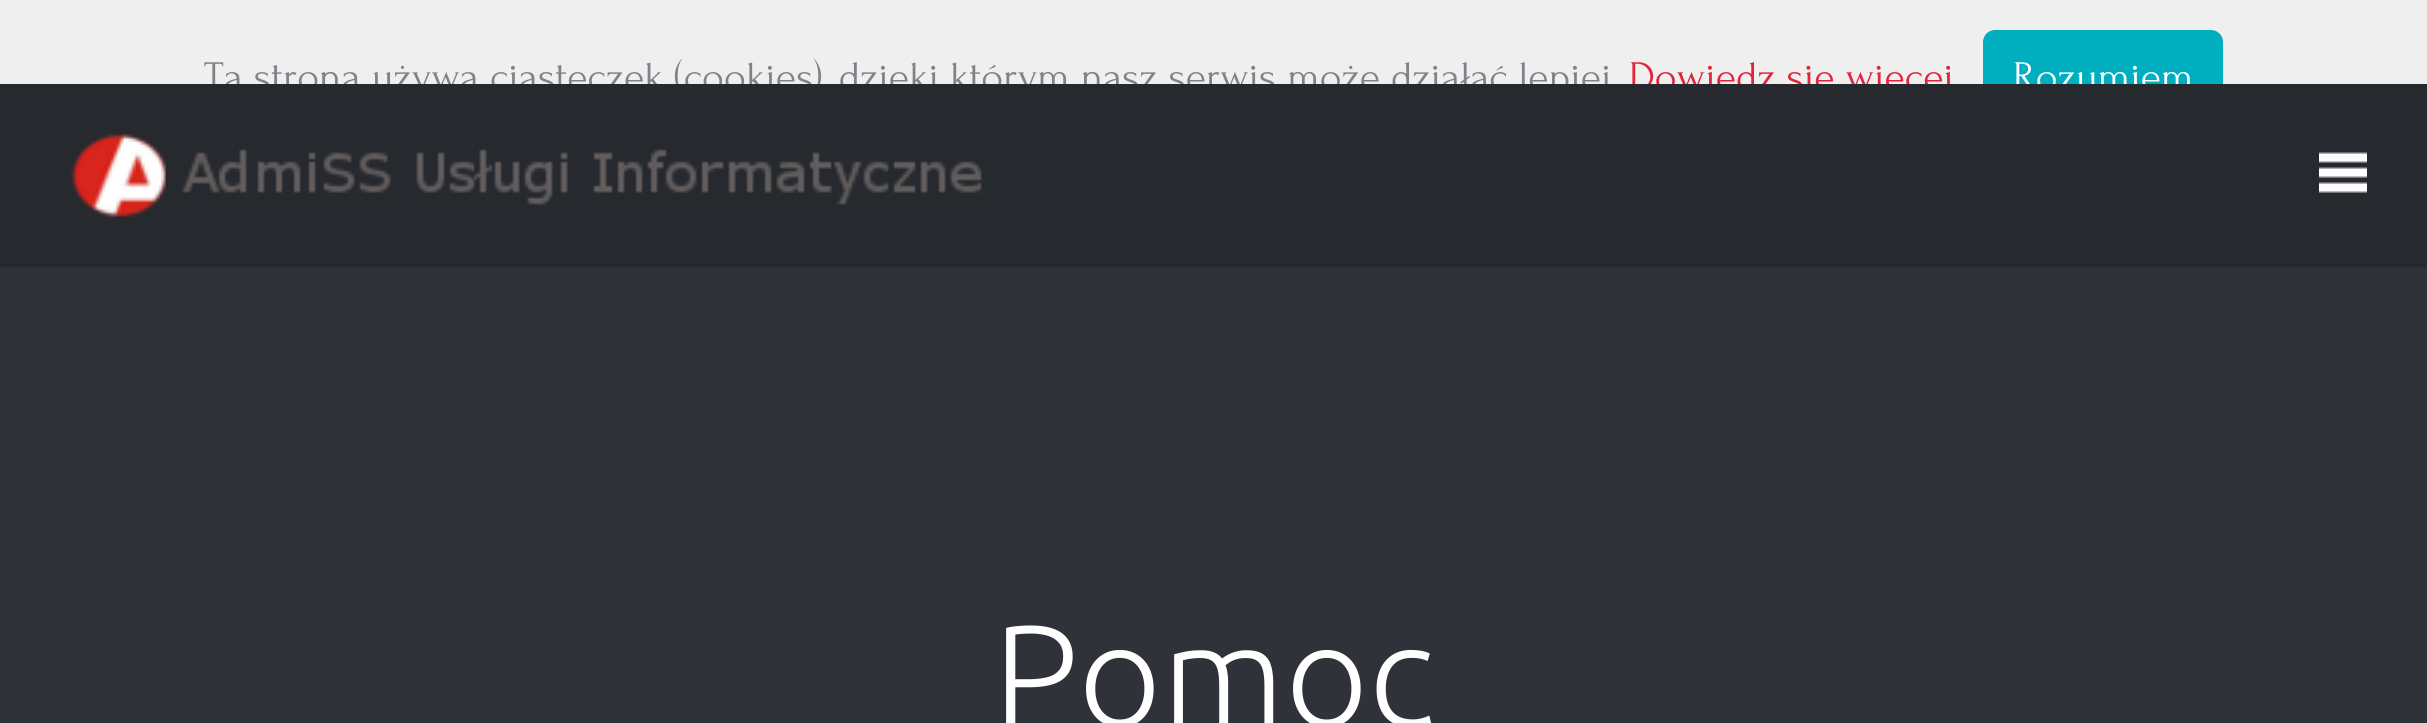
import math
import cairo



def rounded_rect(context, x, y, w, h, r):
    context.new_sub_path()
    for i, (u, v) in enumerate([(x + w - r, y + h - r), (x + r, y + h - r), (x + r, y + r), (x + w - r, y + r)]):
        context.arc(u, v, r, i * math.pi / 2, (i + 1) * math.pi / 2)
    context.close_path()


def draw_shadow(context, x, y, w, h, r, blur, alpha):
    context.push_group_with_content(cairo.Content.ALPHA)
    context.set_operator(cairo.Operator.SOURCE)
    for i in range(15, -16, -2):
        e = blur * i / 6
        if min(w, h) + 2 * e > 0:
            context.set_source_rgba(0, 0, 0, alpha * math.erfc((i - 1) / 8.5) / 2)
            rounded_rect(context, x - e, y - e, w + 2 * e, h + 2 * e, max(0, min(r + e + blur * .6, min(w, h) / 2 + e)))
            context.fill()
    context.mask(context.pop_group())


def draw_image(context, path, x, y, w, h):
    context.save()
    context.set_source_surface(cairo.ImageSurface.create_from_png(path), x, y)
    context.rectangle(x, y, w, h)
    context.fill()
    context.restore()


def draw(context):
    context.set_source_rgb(47 / 255, 50 / 255, 56 / 255)
    context.paint()
    context.set_source_rgb(239 / 255, 239 / 255, 239 / 255)
    context.rectangle(0, 0, 2427, 84)
    context.fill()
    context.set_source_rgb(0, 175 / 255, 191 / 255)
    rounded_rect(context, 1983, 30, 240, 96, 12)
    context.fill()
    context.set_source_rgb(0, 0, 0)
    draw_shadow(context, 0, 87, 2427, 180, 0, 1.5, 0.25)
    context.select_font_face("Forum")
    context.set_font_size(42)
    context.set_source_rgb(127 / 255, 130 / 255, 137 / 255)
    context.move_to(204, 90)
    context.show_text("Ta strona używa ciasteczek (cookies), dzięki którym nasz serwis może działać lepiej")
    context.set_source_rgb(228 / 255, 34 / 255, 60 / 255)
    context.move_to(1629, 90)
    context.show_text("Dowiedz się więcej")
    context.set_source_rgb(1, 1, 1)
    context.move_to(2013, 90)
    context.show_text("Rozumiem")
    context.set_source_rgb(38 / 255, 41 / 255, 46 / 255)
    context.rectangle(0, 84, 2427, 180)
    context.fill()
    draw_image(context, "images/1.png", 71, 133, 911, 84)
    draw_image(context, "images/2.png", 2319, 152, 48, 41)
    context.select_font_face("Ubuntu Light")
    context.set_font_size(144)
    context.set_source_rgb(1, 1, 1)
    context.move_to(993, 726)
    context.show_text("Pomoc")


surface = cairo.ImageSurface(cairo.Format.RGB24, 2427, 723)
context = cairo.Context(surface)
options = cairo.FontOptions()
options.set_hint_metrics(cairo.HintMetrics.OFF)
options.set_hint_style(cairo.HintStyle.NONE)
context.set_font_options(options)
context.set_miter_limit(4)
draw(context)
surface.write_to_png("out.png")
